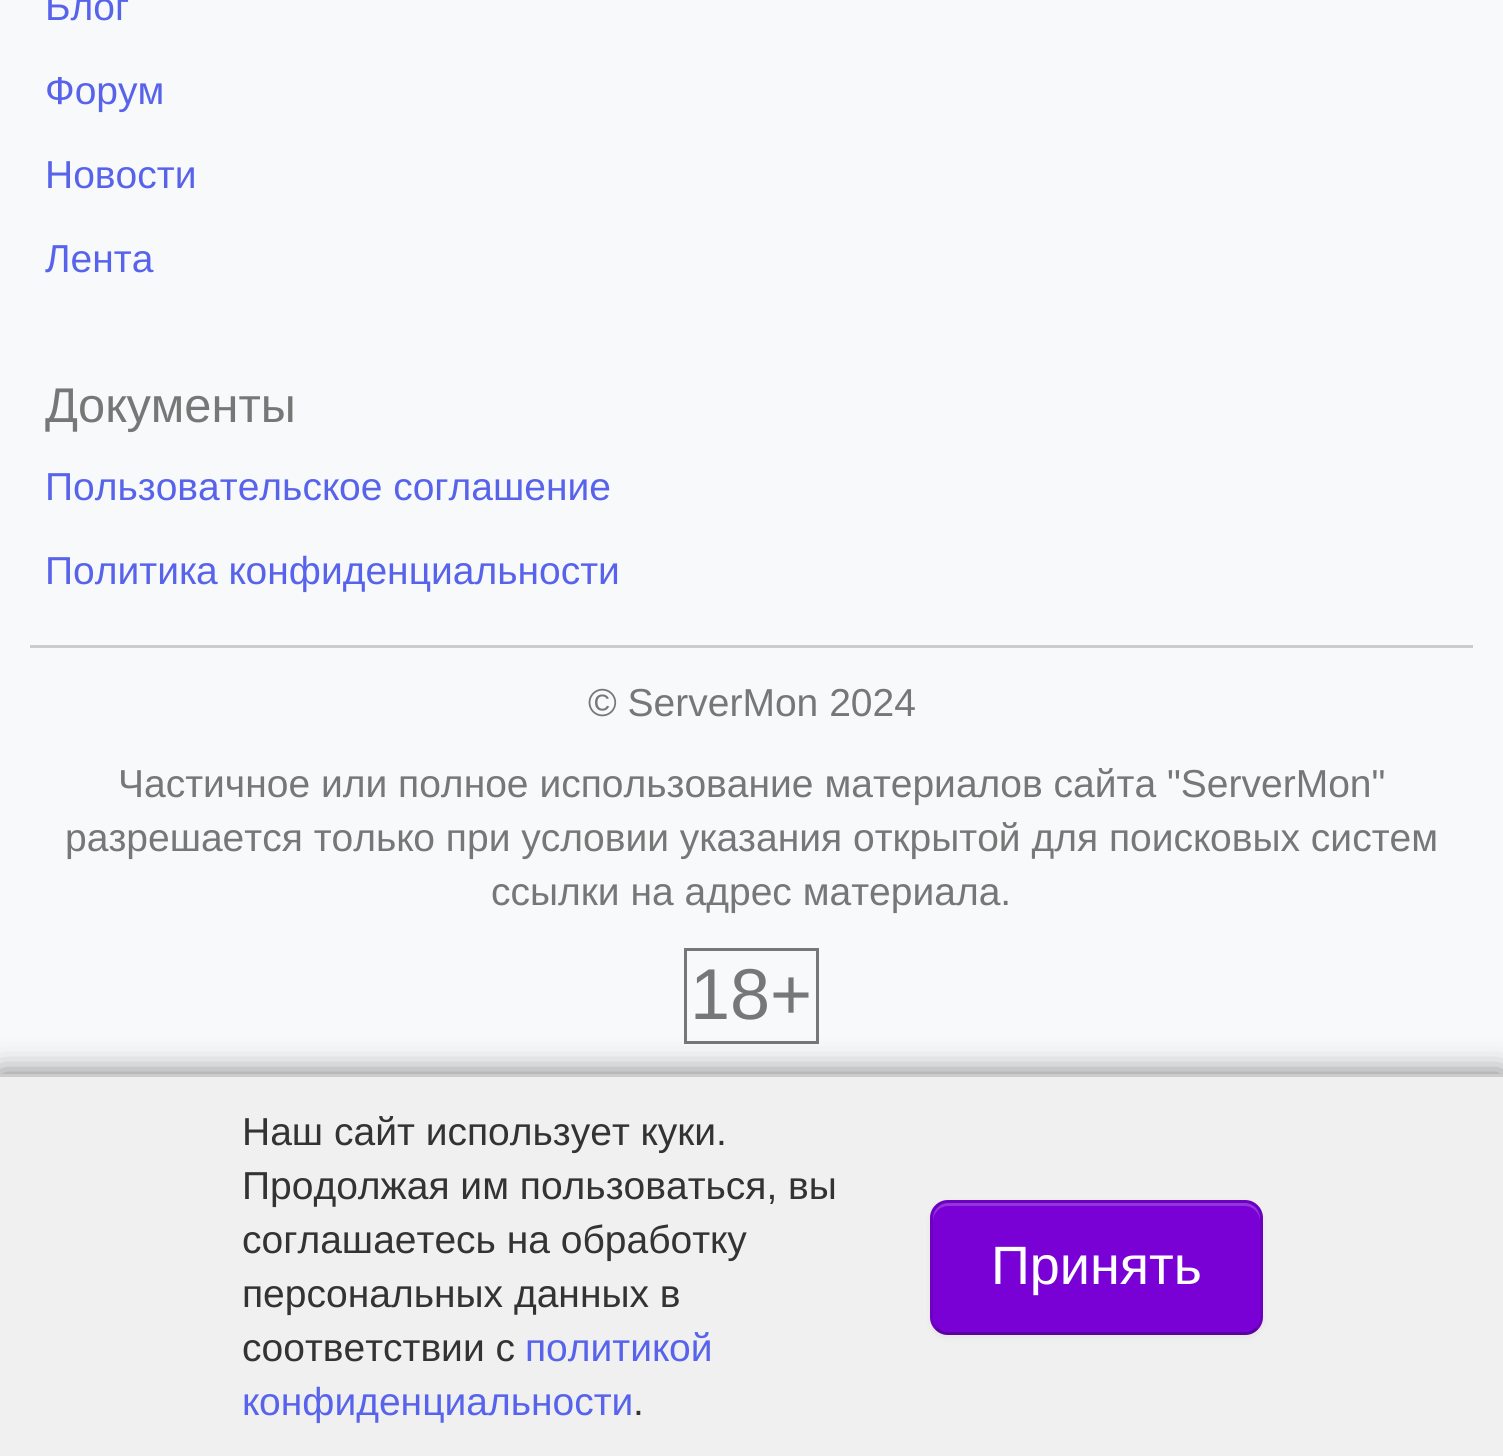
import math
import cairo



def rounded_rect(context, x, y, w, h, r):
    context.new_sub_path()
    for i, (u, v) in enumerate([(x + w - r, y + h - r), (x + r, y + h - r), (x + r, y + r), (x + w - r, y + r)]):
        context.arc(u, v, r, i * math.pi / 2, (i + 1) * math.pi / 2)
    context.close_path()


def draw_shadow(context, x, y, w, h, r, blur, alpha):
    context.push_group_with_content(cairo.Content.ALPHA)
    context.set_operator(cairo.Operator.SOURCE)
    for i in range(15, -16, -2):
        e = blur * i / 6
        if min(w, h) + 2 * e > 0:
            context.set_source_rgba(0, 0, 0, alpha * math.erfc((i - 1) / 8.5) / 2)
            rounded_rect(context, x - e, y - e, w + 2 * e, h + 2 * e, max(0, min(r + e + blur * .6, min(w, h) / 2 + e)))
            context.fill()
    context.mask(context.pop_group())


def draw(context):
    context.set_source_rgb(248 / 255, 249 / 255, 250 / 255)
    context.paint()
    context.set_source_rgb(204 / 255, 204 / 255, 204 / 255)
    context.rectangle(30, 645, 1443, 3)
    context.fill()
    context.rectangle(685.5, 949.5, 132, 93)
    context.set_source_rgb(119 / 255, 119 / 255, 119 / 255)
    context.set_line_width(3)
    context.stroke()
    context.set_source_rgb(0, 0, 0)
    draw_shadow(context, 0, 1074, 1503, 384, 0, 15, 0.53)
    context.set_source_rgb(240 / 255, 240 / 255, 240 / 255)
    context.rectangle(0, 1077, 1503, 379)
    context.fill()
    context.set_source_rgb(204 / 255, 204 / 255, 204 / 255)
    context.rectangle(0, 1074, 1503, 3)
    context.fill()
    context.set_source_rgb(0, 0, 0)
    draw_shadow(context, 930, 1203, 333, 135, 18, 3, 0.05)
    context.set_source_rgb(121 / 255, 1 / 255, 214 / 255)
    rounded_rect(context, 930, 1200, 333, 135, 18)
    context.fill()
    context.set_source_rgb(148 / 255, 52 / 255, 222 / 255)
    context.new_path()
    context.move_to(948, 1206)
    context.line_to(1245, 1206)
    context.curve_to(1253, 1206, 1260, 1213, 1260, 1221)
    context.line_to(1260, 1218)
    context.curve_to(1260, 1210, 1253, 1203, 1245, 1203)
    context.line_to(948, 1203)
    context.curve_to(940, 1203, 933, 1210, 933, 1218)
    context.line_to(933, 1221)
    context.curve_to(933, 1213, 940, 1206, 948, 1206)
    context.close_path()
    context.fill()
    context.new_path()
    context.move_to(1256.5, 1328.5)
    context.curve_to(1253.5, 1332, 1249.5, 1333.5, 1245, 1333.5)
    context.line_to(948, 1333.5)
    context.curve_to(943.5, 1333.5, 939.5, 1332, 936.5, 1328.5)
    context.set_source_rgba(0, 0, 0, 0.25)
    context.stroke()
    context.new_path()
    context.move_to(936.5, 1328.5)
    context.curve_to(933, 1325.5, 931.5, 1321.5, 931.5, 1317)
    context.line_to(931.5, 1218)
    context.curve_to(931.5, 1213.5, 933, 1209.5, 936.5, 1206.5)
    context.curve_to(939.5, 1203, 943.5, 1201.5, 948, 1201.5)
    context.line_to(1245, 1201.5)
    context.curve_to(1249.5, 1201.5, 1253.5, 1203, 1256.5, 1206.5)
    context.curve_to(1260, 1209.5, 1261.5, 1213.5, 1261.5, 1218)
    context.line_to(1261.5, 1317)
    context.curve_to(1261.5, 1321.5, 1260, 1325.5, 1256.5, 1328.5)
    context.set_source_rgba(0, 0, 0, 0.1)
    context.stroke()
    context.select_font_face("Liberation Sans")
    context.set_font_size(39)
    context.set_source_rgb(88 / 255, 99 / 255, 236 / 255)
    context.move_to(45, 20)
    context.show_text("Блог")
    context.move_to(45, 104)
    context.show_text("Форум")
    context.move_to(45, 188)
    context.show_text("Новости")
    context.move_to(45, 272)
    context.show_text("Лента")
    context.set_font_size(48.75)
    context.set_source_rgb(119 / 255, 119 / 255, 119 / 255)
    context.move_to(45, 422)
    context.show_text("Документы")
    context.set_font_size(39)
    context.set_source_rgb(88 / 255, 99 / 255, 236 / 255)
    context.move_to(45, 500)
    context.show_text("Пользовательское соглашение")
    context.move_to(45, 584)
    context.show_text("Политика конфиденциальности")
    context.set_source_rgb(119 / 255, 119 / 255, 119 / 255)
    context.move_to(588, 716)
    context.show_text("© ServerMon 2024")
    context.move_to(118, 797)
    context.show_text("Частичное или полное использование материалов сайта \"ServerMon\"")
    context.move_to(65, 851)
    context.show_text("разрешается только при условии указания открытой для поисковых систем")
    context.move_to(491, 905)
    context.show_text("ссылки на адрес материала.")
    context.set_font_size(72)
    context.move_to(690, 1019)
    context.show_text("18+")
    context.set_font_size(39)
    context.set_source_rgb(51 / 255, 51 / 255, 51 / 255)
    context.move_to(242, 1145)
    context.show_text("Наш сайт использует куки.")
    context.move_to(242, 1199)
    context.show_text("Продолжая им пользоваться, вы")
    context.move_to(242, 1253)
    context.show_text("соглашаетесь на обработку")
    context.move_to(242, 1307)
    context.show_text("персональных данных в")
    context.move_to(242, 1361)
    context.show_text("соответствии с")
    context.set_source_rgb(88 / 255, 99 / 255, 236 / 255)
    context.move_to(525, 1361)
    context.show_text("политикой")
    context.move_to(242, 1415)
    context.show_text("конфиденциальности")
    context.set_source_rgb(51 / 255, 51 / 255, 51 / 255)
    context.move_to(633, 1415)
    context.show_text(".")
    context.set_font_size(54)
    context.set_source_rgb(1, 1, 1)
    context.move_to(991, 1284)
    context.show_text("Принять")


surface = cairo.ImageSurface(cairo.Format.RGB24, 1503, 1456)
context = cairo.Context(surface)
options = cairo.FontOptions()
options.set_hint_metrics(cairo.HintMetrics.OFF)
options.set_hint_style(cairo.HintStyle.NONE)
context.set_font_options(options)
context.set_miter_limit(4)
draw(context)
surface.write_to_png("out.png")
